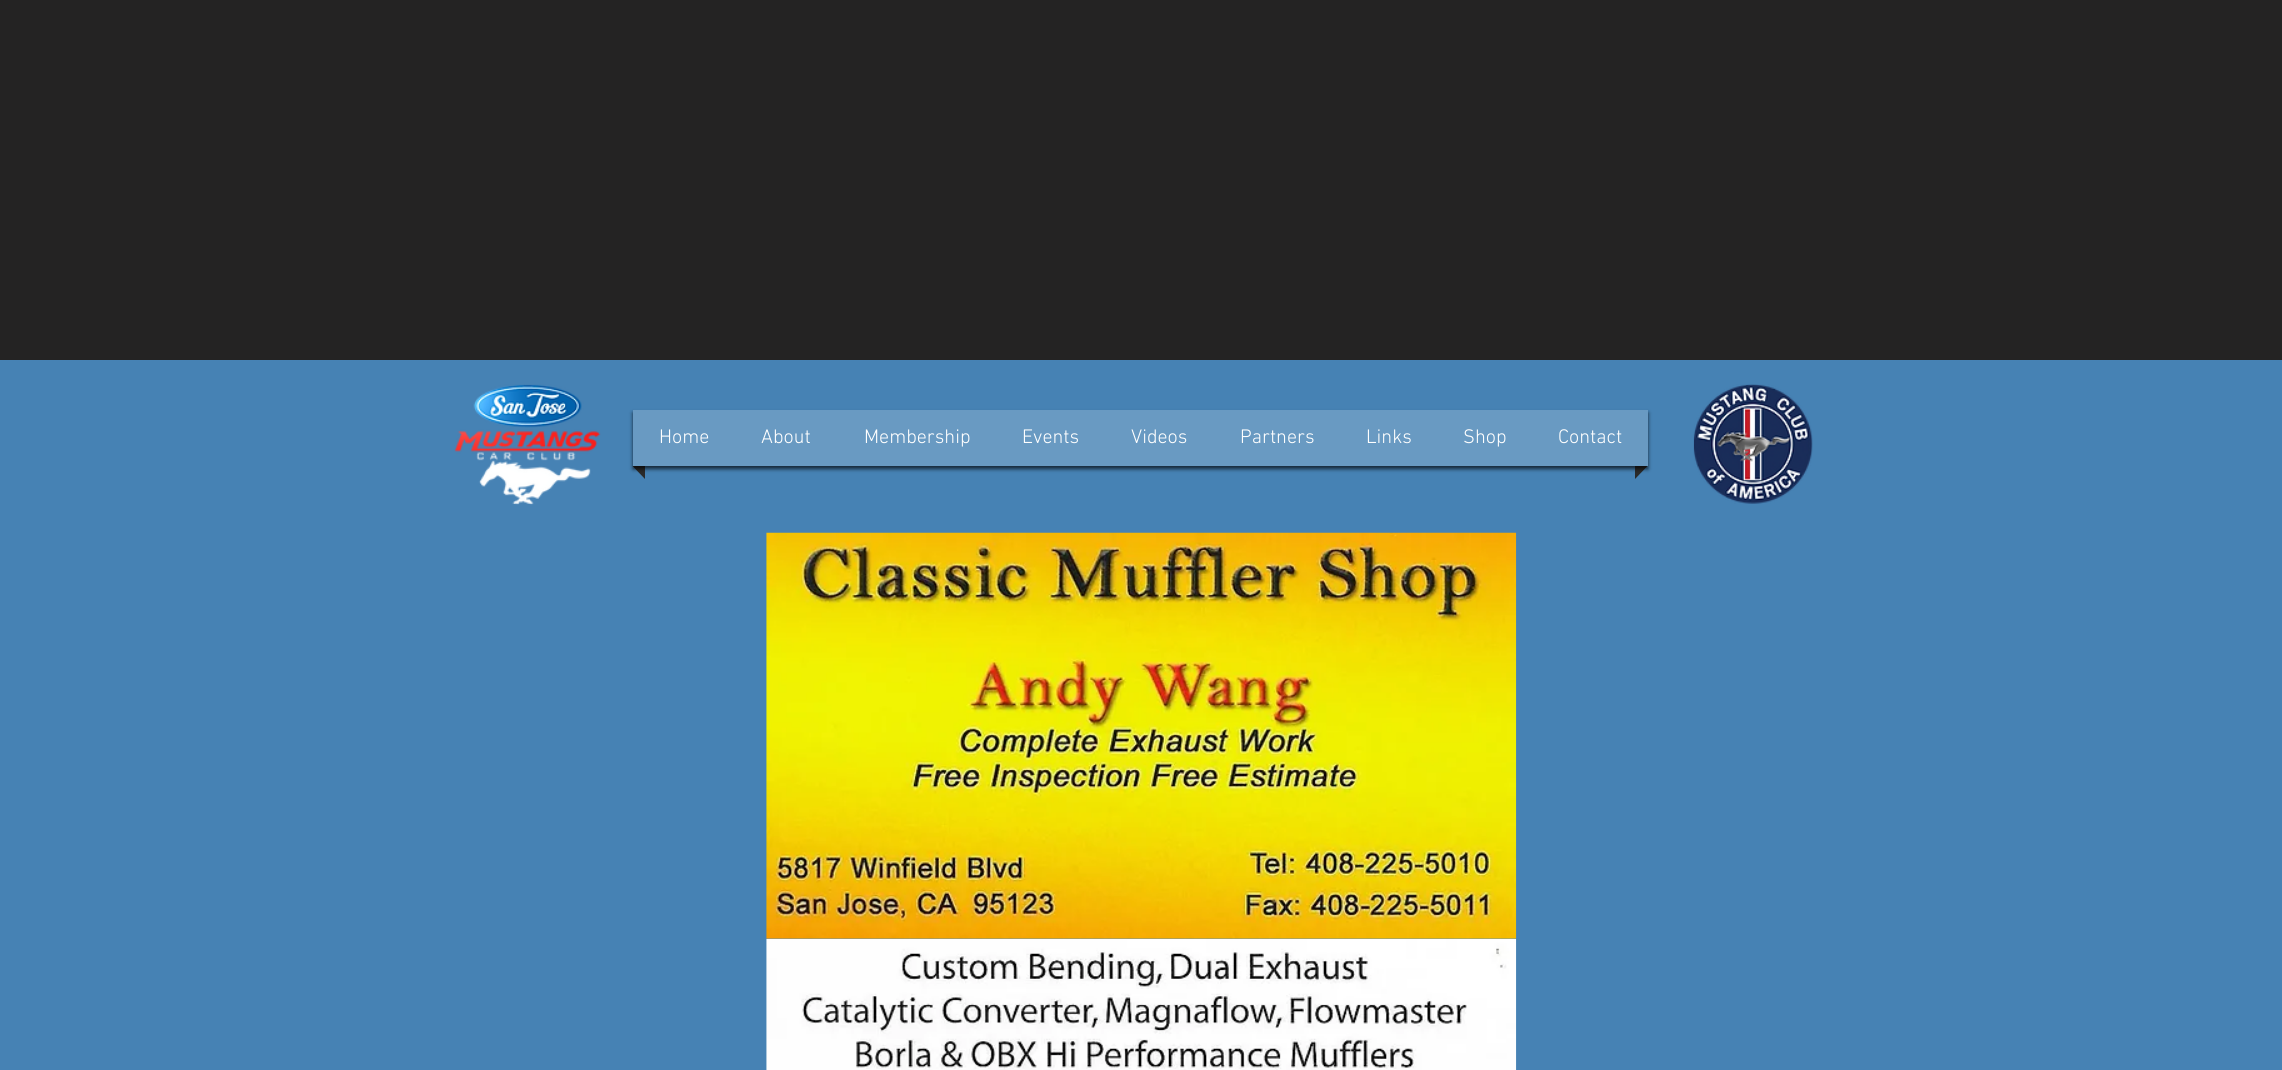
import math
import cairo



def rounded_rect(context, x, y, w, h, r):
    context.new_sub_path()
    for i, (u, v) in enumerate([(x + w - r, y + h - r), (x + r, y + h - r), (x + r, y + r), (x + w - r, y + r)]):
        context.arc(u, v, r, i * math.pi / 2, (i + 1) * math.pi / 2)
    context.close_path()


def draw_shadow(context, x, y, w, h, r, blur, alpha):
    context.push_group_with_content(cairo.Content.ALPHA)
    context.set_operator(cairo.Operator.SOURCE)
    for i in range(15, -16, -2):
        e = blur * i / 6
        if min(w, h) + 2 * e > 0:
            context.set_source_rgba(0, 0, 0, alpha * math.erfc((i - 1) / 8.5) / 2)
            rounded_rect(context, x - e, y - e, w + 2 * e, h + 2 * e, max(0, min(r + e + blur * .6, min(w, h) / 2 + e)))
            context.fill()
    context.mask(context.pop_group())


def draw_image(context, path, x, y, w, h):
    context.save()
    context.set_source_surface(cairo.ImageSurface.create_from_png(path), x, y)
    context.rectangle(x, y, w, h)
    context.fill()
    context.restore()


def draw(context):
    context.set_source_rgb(70 / 255, 130 / 255, 180 / 255)
    context.paint()
    context.set_source_rgb(36 / 255, 35 / 255, 35 / 255)
    context.rectangle(0, 0, 2282, 360)
    context.fill()
    draw_image(context, "images/1.png", 454, 384, 147, 121)
    draw_image(context, "images/2.png", 1693, 384, 120, 120)
    context.set_source_rgb(42 / 255, 42 / 255, 42 / 255)
    context.new_path()
    context.move_to(632.5, 466)
    context.line_to(645, 466)
    context.line_to(645, 479)
    context.close_path()
    context.fill()
    context.new_path()
    context.move_to(1635, 466)
    context.line_to(1647.5, 466)
    context.line_to(1635, 479)
    context.close_path()
    context.fill()
    context.save()
    context.set_fill_rule(cairo.FillRule.EVEN_ODD)
    context.new_path()
    context.move_to(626, 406)
    context.line_to(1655, 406)
    context.line_to(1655, 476)
    context.line_to(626, 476)
    context.close_path()
    context.move_to(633, 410)
    context.line_to(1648, 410)
    context.line_to(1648, 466)
    context.line_to(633, 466)
    context.close_path()
    context.clip()
    context.set_source_rgb(0, 0, 0)
    draw_shadow(context, 633, 413, 1015, 56, 0, 2, 0.7)
    context.restore()
    context.set_source_rgba(1, 1, 1, 0.19)
    context.rectangle(633, 410, 1015, 56)
    context.fill()
    draw_image(context, "images/3.png", 766, 532, 751, 407)
    draw_image(context, "images/4.png", 766, 938, 751, 132)
    context.select_font_face("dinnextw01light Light")
    context.set_font_size(20)
    context.set_source_rgb(1, 1, 1)
    context.move_to(659, 443)
    context.show_text("Home")
    context.move_to(761, 443)
    context.show_text("About")
    context.move_to(864, 443)
    context.show_text("Membership")
    context.move_to(1022, 443)
    context.show_text("Events")
    context.move_to(1131, 443)
    context.show_text("Videos")
    context.move_to(1240, 443)
    context.show_text("Partners")
    context.move_to(1366, 443)
    context.show_text("Links")
    context.move_to(1463, 443)
    context.show_text("Shop")
    context.move_to(1558, 443)
    context.show_text("Contact")


surface = cairo.ImageSurface(cairo.Format.RGB24, 2282, 1070)
context = cairo.Context(surface)
options = cairo.FontOptions()
options.set_hint_metrics(cairo.HintMetrics.OFF)
options.set_hint_style(cairo.HintStyle.NONE)
context.set_font_options(options)
context.set_miter_limit(4)
draw(context)
surface.write_to_png("out.png")
